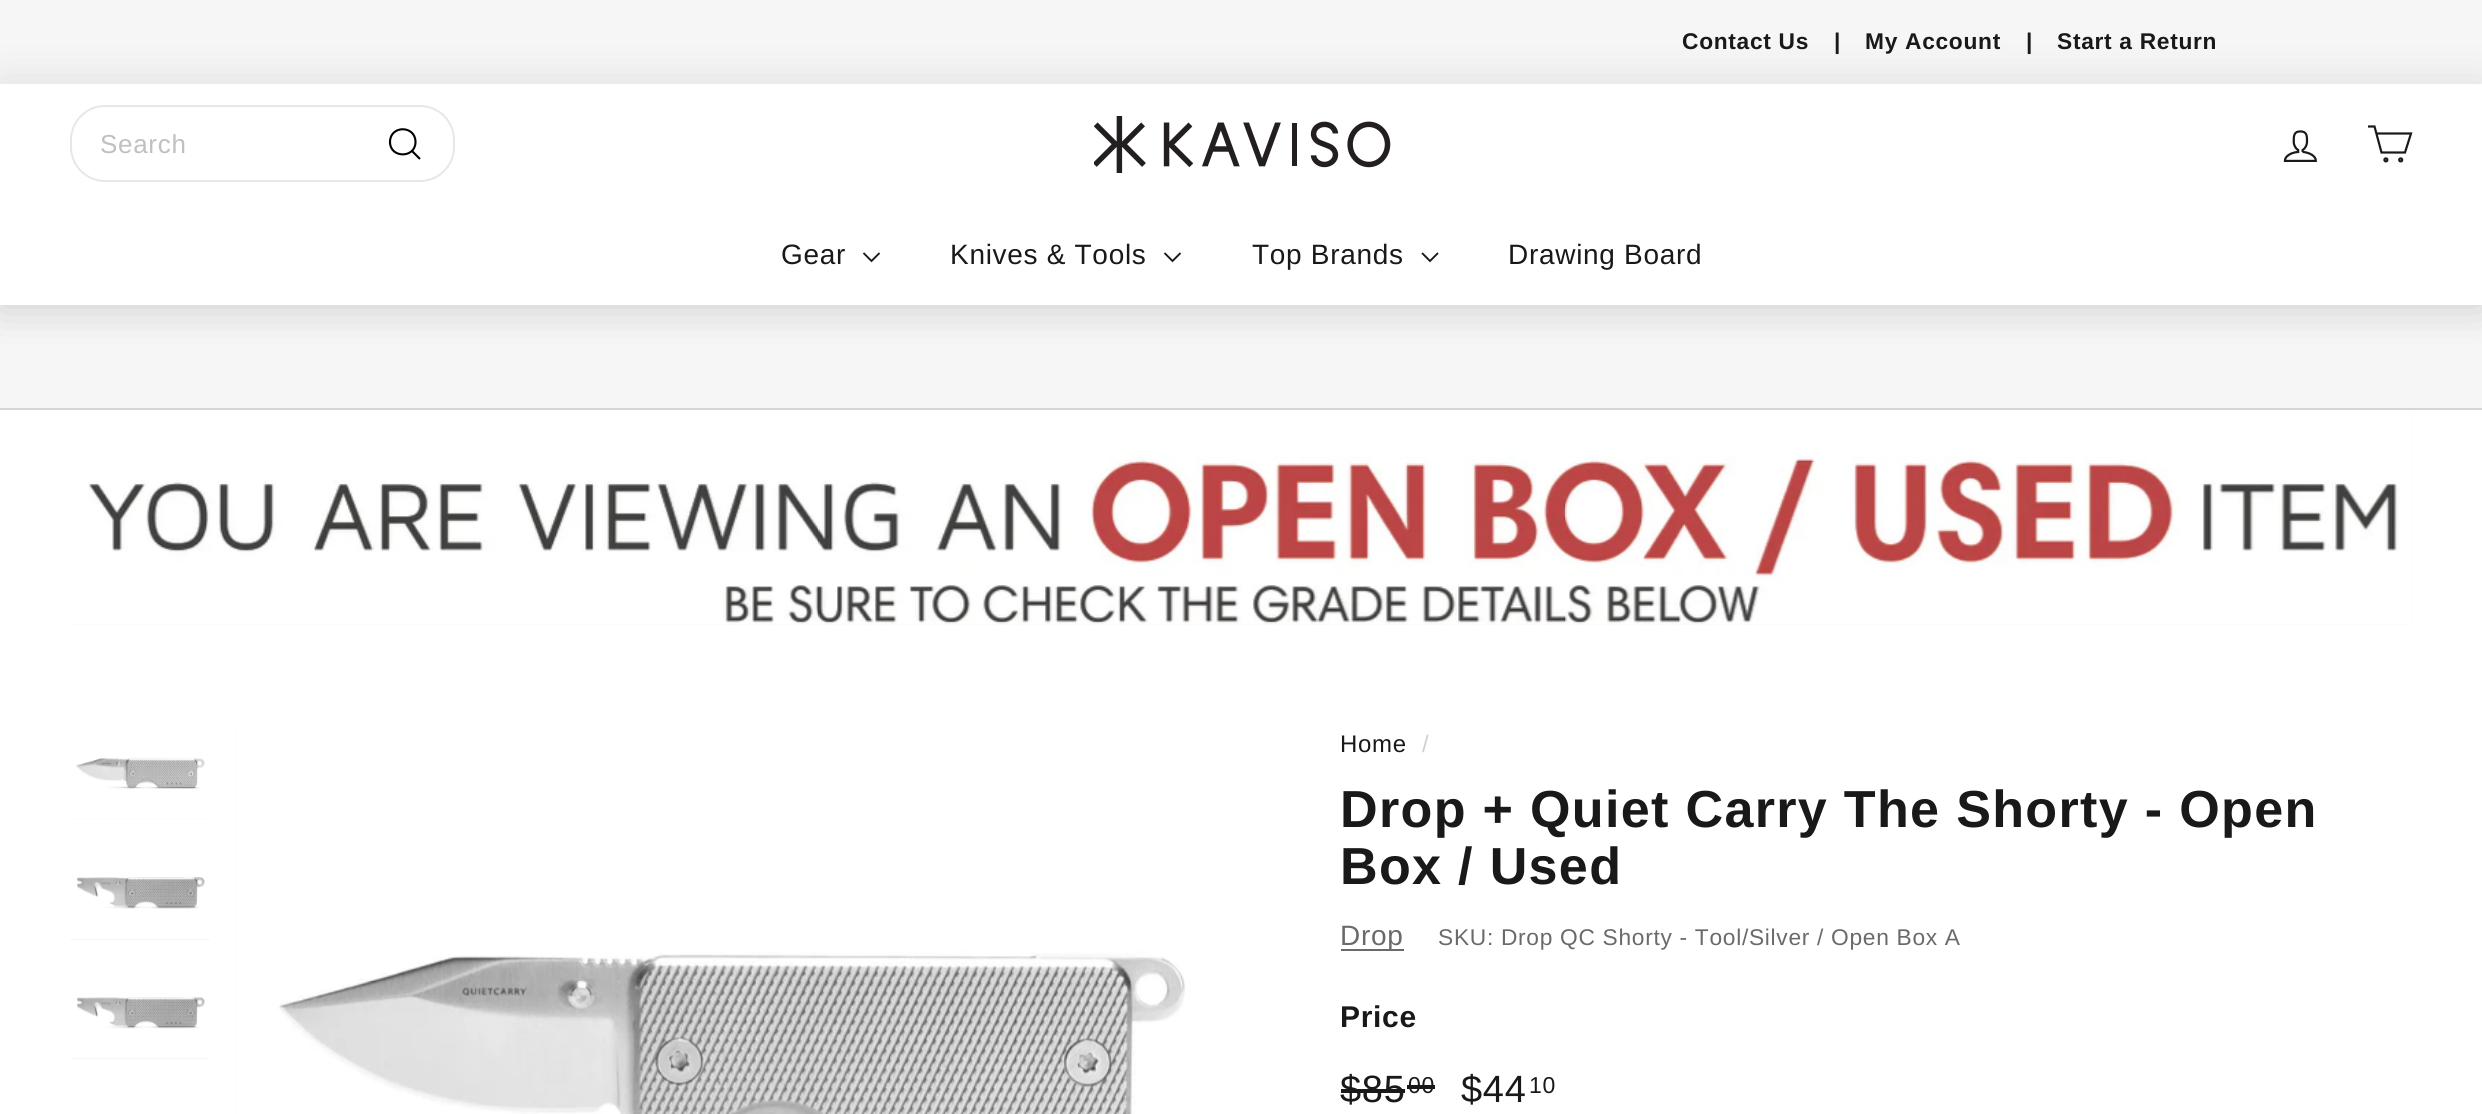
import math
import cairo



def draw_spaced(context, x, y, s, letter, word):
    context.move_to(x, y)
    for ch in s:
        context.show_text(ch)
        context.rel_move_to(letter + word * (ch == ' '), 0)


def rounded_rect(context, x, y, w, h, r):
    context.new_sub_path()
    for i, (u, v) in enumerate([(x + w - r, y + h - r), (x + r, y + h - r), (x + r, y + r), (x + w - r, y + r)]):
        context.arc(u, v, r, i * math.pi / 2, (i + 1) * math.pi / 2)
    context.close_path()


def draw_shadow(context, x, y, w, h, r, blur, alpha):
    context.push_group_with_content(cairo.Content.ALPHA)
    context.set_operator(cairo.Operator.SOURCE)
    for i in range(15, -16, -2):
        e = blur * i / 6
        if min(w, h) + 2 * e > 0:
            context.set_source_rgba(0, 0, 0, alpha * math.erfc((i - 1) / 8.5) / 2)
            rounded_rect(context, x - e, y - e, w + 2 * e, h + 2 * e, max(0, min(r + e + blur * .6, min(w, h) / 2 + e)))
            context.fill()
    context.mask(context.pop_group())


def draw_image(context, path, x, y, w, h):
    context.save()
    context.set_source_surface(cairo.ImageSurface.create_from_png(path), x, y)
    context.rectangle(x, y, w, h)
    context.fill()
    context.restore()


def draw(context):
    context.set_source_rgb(1, 1, 1)
    context.paint()
    context.set_source_rgb(246 / 255, 246 / 255, 246 / 255)
    context.rectangle(0, 0, 2482, 84)
    context.fill()
    context.rectangle(0, 305, 2482, 103)
    context.fill()
    context.set_source_rgb(0, 0, 0)
    draw_shadow(context, 0, 84, 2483, 221, 0, 22, 0.1)
    draw_shadow(context, 0, 205, 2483, 100, 0, 22, 0.1)
    context.set_source_rgb(1, 1, 1)
    context.rectangle(0, 84, 2482, 221)
    context.fill()
    rounded_rect(context, 71, 106, 383, 75, 34)
    context.set_source_rgb(232 / 255, 232 / 255, 225 / 255)
    context.stroke()
    context.new_path()
    context.move_to(415.5, 142)
    context.curve_to(415.5, 158.5, 390, 158.5, 390, 142)
    context.curve_to(390, 125, 415.5, 125, 415.5, 142)
    context.close_path()
    context.move_to(420, 159)
    context.line_to(412, 151)
    context.set_source_rgb(0, 0, 0)
    context.set_line_width(2.1)
    context.stroke()
    draw_image(context, "images/1.png", 1094, 116, 297, 57)
    draw_image(context, "images/2.png", 2283, 130, 34, 32)
    context.new_path()
    context.move_to(2376.5, 133.5)
    context.line_to(2411, 133.5)
    context.line_to(2405, 152.5)
    context.line_to(2381.5, 152.5)
    context.line_to(2374.5, 126.5)
    context.line_to(2368, 126.5)
    context.set_source_rgb(25 / 255, 25 / 255, 25 / 255)
    context.set_line_width(2.2)
    context.stroke()
    context.arc(2385.9, 159.9, 1.5, 0, 2 * math.pi)
    context.stroke()
    context.arc(2400.7, 159.9, 1.5, 0, 2 * math.pi)
    context.stroke()
    context.new_path()
    context.move_to(863.5, 253)
    context.line_to(871.5, 261)
    context.line_to(879.5, 253)
    context.set_line_width(1.9)
    context.stroke()
    context.new_path()
    context.move_to(1164.5, 253)
    context.line_to(1172.5, 261)
    context.line_to(1180.5, 253)
    context.stroke()
    context.new_path()
    context.move_to(1422, 253)
    context.line_to(1430, 261)
    context.line_to(1438, 253)
    context.stroke()
    context.set_source_rgb(213 / 255, 213 / 255, 213 / 255)
    context.rectangle(0, 408, 2482, 2)
    context.fill()
    context.set_source_rgb(246 / 255, 246 / 255, 246 / 255)
    context.rectangle(70, 410, 2343, 215)
    context.fill()
    draw_image(context, "images/3.png", 70, 410, 2343, 215)
    context.rectangle(70, 818, 140, 1)
    context.fill()
    draw_image(context, "images/4.png", 70, 726, 140, 93)
    context.rectangle(70, 845, 140, 95)
    context.fill()
    draw_image(context, "images/5.png", 70, 845, 140, 94)
    context.rectangle(70, 966, 140, 93)
    context.fill()
    draw_image(context, "images/6.png", 70, 966, 140, 92)
    context.rectangle(236, 726, 1, 388)
    context.fill()
    draw_image(context, "images/7.png", 236, 726, 987, 388)
    context.set_source_rgb(106 / 255, 106 / 255, 106 / 255)
    context.rectangle(1341, 949, 63, 2)
    context.fill()
    context.set_source_rgb(25 / 255, 25 / 255, 25 / 255)
    context.rectangle(1341, 1089, 64, 4)
    context.fill()
    context.rectangle(1407, 1085, 28, 4)
    context.fill()
    context.select_font_face("Liberation Sans", cairo.FontSlant.NORMAL, cairo.FontWeight.BOLD)
    context.set_font_size(22.75)
    draw_spaced(context, 1682, 49, "Contact Us", 0.7, 0)
    draw_spaced(context, 1834, 49, "|", 0.7, 0)
    draw_spaced(context, 1865, 49, "My Account", 0.7, 0)
    draw_spaced(context, 2026, 49, "|", 0.7, 0)
    draw_spaced(context, 2057, 49, "Start a Return", 0.7, 0)
    context.select_font_face("Liberation Sans")
    context.set_font_size(26)
    context.set_source_rgb(192 / 255, 192 / 255, 192 / 255)
    draw_spaced(context, 100, 153, "Search", 0.7, 0)
    context.set_font_size(28)
    context.set_source_rgb(25 / 255, 25 / 255, 25 / 255)
    draw_spaced(context, 781, 264, "Gear", 0.7, 0)
    draw_spaced(context, 950, 264, "Knives & Tools", 0.7, 0)
    draw_spaced(context, 1252, 264, "Top Brands", 0.7, 0)
    draw_spaced(context, 1508, 264, "Drawing Board", 0.7, 0)
    context.set_font_size(24)
    draw_spaced(context, 1340, 752, "Home", 0.7, 0)
    context.set_source_rgb(209 / 255, 209 / 255, 209 / 255)
    draw_spaced(context, 1422, 752, "/", 0.7, 0)
    context.select_font_face("Liberation Sans", cairo.FontSlant.NORMAL, cairo.FontWeight.BOLD)
    context.set_font_size(52.1)
    context.set_source_rgb(25 / 255, 25 / 255, 25 / 255)
    draw_spaced(context, 1340, 827, "Drop + Quiet Carry The Shorty - Open", 1.3, 0)
    draw_spaced(context, 1340, 884, "Box / Used", 1.3, 0)
    context.select_font_face("Liberation Sans")
    context.set_font_size(28)
    context.set_source_rgb(106 / 255, 106 / 255, 106 / 255)
    draw_spaced(context, 1340, 945, "Drop", 0.7, 0)
    context.set_font_size(22.75)
    draw_spaced(context, 1438, 945, "SKU: Drop QC Shorty - Tool/Silver / Open Box A", 0.7, 0)
    context.select_font_face("Liberation Sans", cairo.FontSlant.NORMAL, cairo.FontWeight.BOLD)
    context.set_font_size(30)
    context.set_source_rgb(25 / 255, 25 / 255, 25 / 255)
    draw_spaced(context, 1340, 1027, "Price", 0.7, 0)
    context.select_font_face("Liberation Sans")
    context.set_font_size(38)
    draw_spaced(context, 1340, 1102, "$85", 0.7, 0)
    context.set_font_size(23)
    draw_spaced(context, 1408, 1093, "00", 0.7, 0)
    context.set_font_size(38)
    draw_spaced(context, 1461, 1102, "$44", 0.7, 0)
    context.set_font_size(23)
    draw_spaced(context, 1529, 1093, "10", 0.7, 0)


surface = cairo.ImageSurface(cairo.Format.RGB24, 2482, 1114)
context = cairo.Context(surface)
options = cairo.FontOptions()
options.set_hint_metrics(cairo.HintMetrics.OFF)
options.set_hint_style(cairo.HintStyle.NONE)
context.set_font_options(options)
context.set_miter_limit(4)
draw(context)
surface.write_to_png("out.png")
